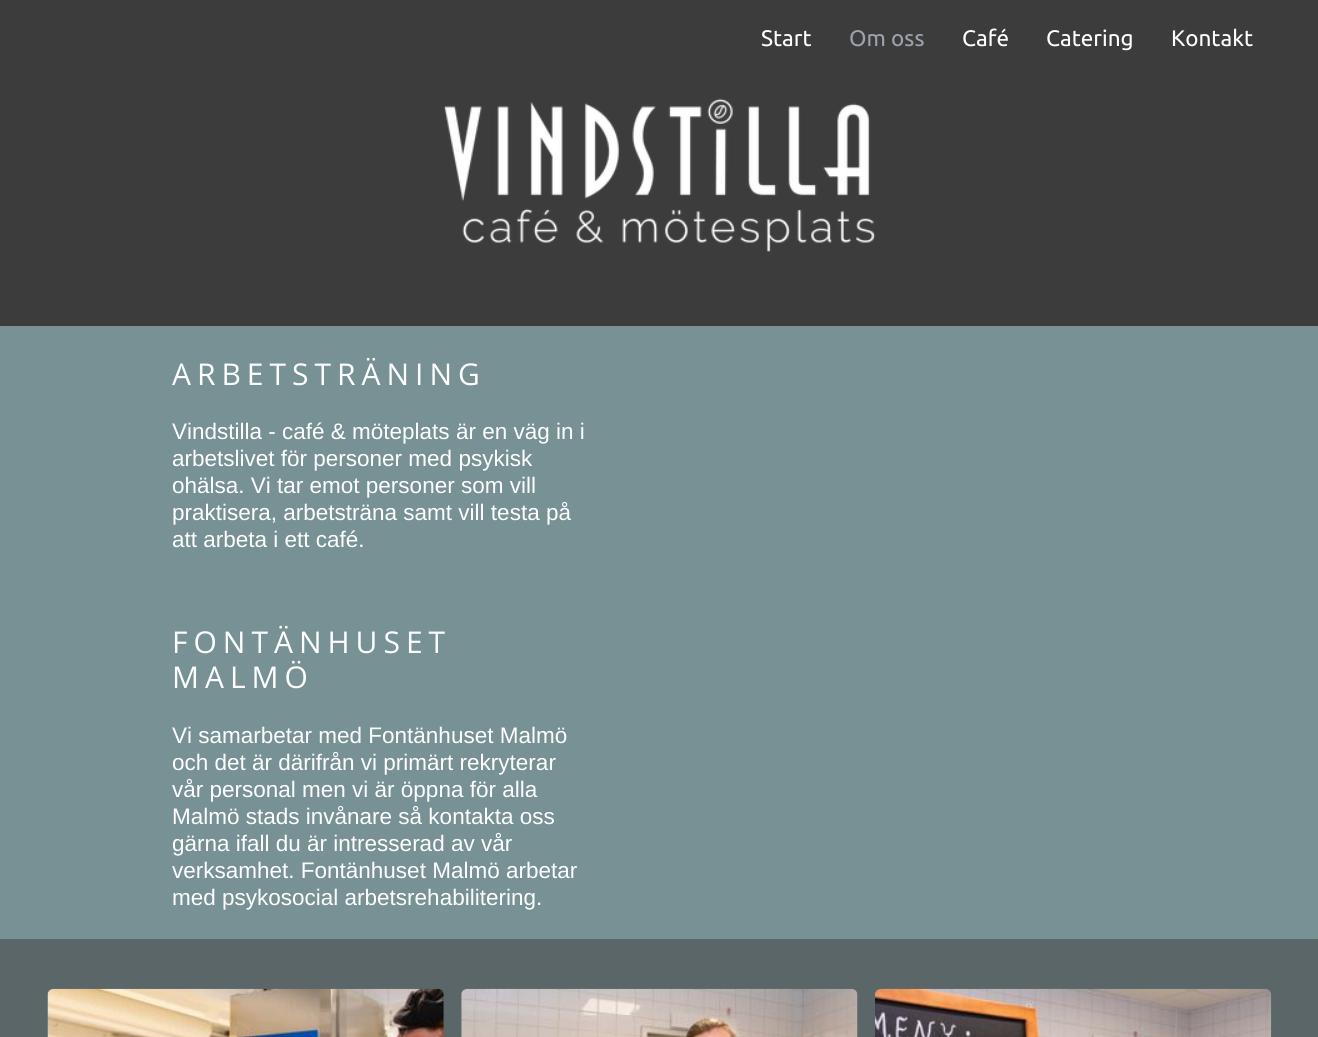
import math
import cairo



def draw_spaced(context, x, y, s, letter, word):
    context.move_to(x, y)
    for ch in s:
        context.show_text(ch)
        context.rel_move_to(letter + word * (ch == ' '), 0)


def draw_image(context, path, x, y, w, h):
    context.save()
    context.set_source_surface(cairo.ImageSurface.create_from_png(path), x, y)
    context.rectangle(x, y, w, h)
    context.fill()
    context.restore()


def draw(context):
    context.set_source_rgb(60 / 255, 60 / 255, 60 / 255)
    context.paint()
    draw_image(context, "images/1.png", 443, 98, 433, 154)
    context.set_source_rgb(119 / 255, 145 / 255, 149 / 255)
    context.rectangle(0, 326, 1318, 613)
    context.fill()
    context.set_source_rgb(90 / 255, 102 / 255, 104 / 255)
    context.rectangle(0, 939, 1318, 98)
    context.fill()
    draw_image(context, "images/2.png", 47, 988, 397, 49)
    draw_image(context, "images/3.png", 461, 988, 397, 49)
    draw_image(context, "images/4.png", 875, 988, 397, 49)
    context.select_font_face("Ubuntu")
    context.set_font_size(22.5)
    context.set_source_rgb(1, 1, 1)
    context.move_to(761, 46)
    context.show_text("Start")
    context.set_source_rgb(157 / 255, 162 / 255, 174 / 255)
    context.move_to(849, 46)
    context.show_text("Om oss")
    context.set_source_rgb(1, 1, 1)
    context.move_to(962, 46)
    context.show_text("Café")
    context.move_to(1046, 46)
    context.show_text("Catering")
    context.move_to(1171, 46)
    context.show_text("Kontakt")
    context.select_font_face("Open Sans")
    context.set_font_size(30)
    draw_spaced(context, 172, 385, "ARBETSTRÄNING", 6, 0)
    context.select_font_face("Liberation Sans")
    context.set_font_size(22.5)
    context.move_to(172, 439)
    context.show_text("Vindstilla - café & möteplats är en väg in i")
    context.move_to(172, 466)
    context.show_text("arbetslivet för personer med psykisk")
    context.move_to(172, 493)
    context.show_text("ohälsa. Vi tar emot personer som vill")
    context.move_to(172, 520)
    context.show_text("praktisera, arbetsträna samt vill testa på")
    context.move_to(172, 547)
    context.show_text("att arbeta i ett café.")
    context.select_font_face("Open Sans")
    context.set_font_size(30)
    draw_spaced(context, 172, 653, "FONTÄNHUSET", 6, 0)
    draw_spaced(context, 172, 688, "MALMÖ", 6, 0)
    context.select_font_face("Liberation Sans")
    context.set_font_size(22.5)
    context.move_to(172, 743)
    context.show_text("Vi samarbetar med Fontänhuset Malmö")
    context.move_to(172, 770)
    context.show_text("och det är därifrån vi primärt rekryterar")
    context.move_to(172, 797)
    context.show_text("vår personal men vi är öppna för alla")
    context.move_to(172, 824)
    context.show_text("Malmö stads invånare så kontakta oss")
    context.move_to(172, 851)
    context.show_text("gärna ifall du är intresserad av vår")
    context.move_to(172, 878)
    context.show_text("verksamhet. Fontänhuset Malmö arbetar")
    context.move_to(172, 905)
    context.show_text("med psykosocial arbetsrehabilitering.")


surface = cairo.ImageSurface(cairo.Format.RGB24, 1318, 1037)
context = cairo.Context(surface)
options = cairo.FontOptions()
options.set_hint_metrics(cairo.HintMetrics.OFF)
options.set_hint_style(cairo.HintStyle.NONE)
context.set_font_options(options)
context.set_miter_limit(4)
draw(context)
surface.write_to_png("out.png")
